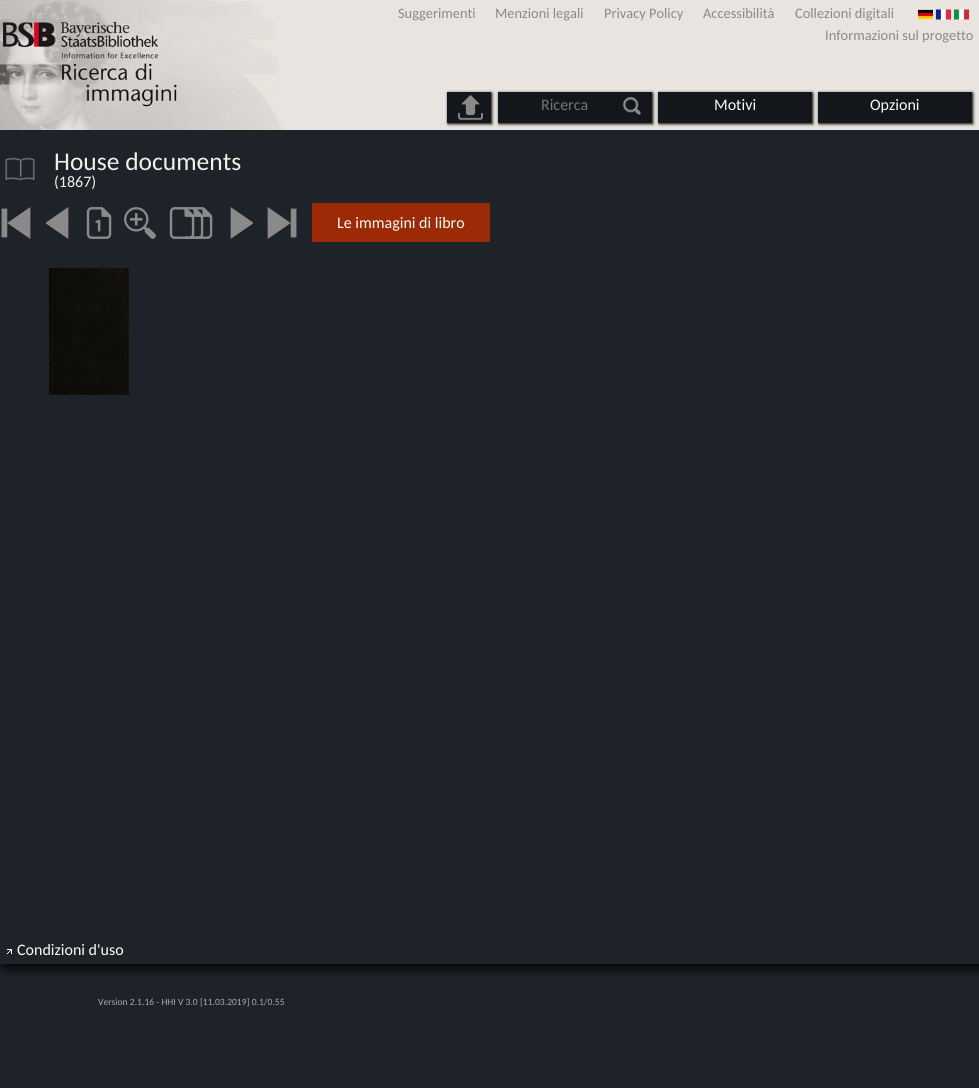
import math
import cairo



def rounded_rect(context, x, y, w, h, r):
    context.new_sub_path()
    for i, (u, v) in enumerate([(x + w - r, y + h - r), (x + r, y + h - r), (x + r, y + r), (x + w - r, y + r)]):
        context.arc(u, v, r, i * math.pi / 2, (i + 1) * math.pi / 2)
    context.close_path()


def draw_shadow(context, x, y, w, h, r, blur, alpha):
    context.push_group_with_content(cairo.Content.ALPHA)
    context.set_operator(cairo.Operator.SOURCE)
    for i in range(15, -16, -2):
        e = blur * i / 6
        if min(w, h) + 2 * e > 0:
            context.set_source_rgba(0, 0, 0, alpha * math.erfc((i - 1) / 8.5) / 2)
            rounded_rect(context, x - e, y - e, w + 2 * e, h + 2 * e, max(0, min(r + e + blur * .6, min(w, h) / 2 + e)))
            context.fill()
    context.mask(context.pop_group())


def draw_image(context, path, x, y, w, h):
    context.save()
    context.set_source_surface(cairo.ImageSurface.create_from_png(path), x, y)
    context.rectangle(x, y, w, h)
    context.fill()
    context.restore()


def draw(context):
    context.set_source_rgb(30 / 255, 35 / 255, 42 / 255)
    context.paint()
    context.save()
    context.rectangle(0, 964, 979, 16)
    context.clip()
    context.set_source_rgb(0, 0, 0)
    draw_shadow(context, 4, 4, 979, 964, 0, 6, 1)
    context.restore()
    context.set_source_rgb(233 / 255, 228 / 255, 224 / 255)
    context.rectangle(0, 0, 979, 130)
    context.fill()
    draw_image(context, "images/1.png", 0, 0, 283, 130)
    draw_image(context, "images/2.png", 918, 9, 51, 11)
    context.set_source_rgb(0, 0, 0)
    draw_shadow(context, 448, 93, 44, 31, 0, 1.5, 1)
    context.set_source_rgb(19 / 255, 22 / 255, 26 / 255)
    context.rectangle(447, 92, 44, 31)
    context.fill()
    draw_image(context, "images/3.png", 458, 95, 25, 25)
    context.set_source_rgb(0, 0, 0)
    draw_shadow(context, 819, 93, 154, 31, 0, 1.5, 1)
    context.set_source_rgb(19 / 255, 22 / 255, 26 / 255)
    context.rectangle(818, 92, 154, 31)
    context.fill()
    context.set_source_rgb(0, 0, 0)
    draw_shadow(context, 659, 93, 154, 31, 0, 1.5, 1)
    context.set_source_rgb(19 / 255, 22 / 255, 26 / 255)
    context.rectangle(658, 92, 154, 31)
    context.fill()
    context.set_source_rgb(0, 0, 0)
    draw_shadow(context, 499, 93, 154, 31, 0, 1.5, 1)
    context.set_source_rgb(19 / 255, 22 / 255, 26 / 255)
    context.rectangle(498, 92, 154, 31)
    context.fill()
    draw_image(context, "images/4.png", 622, 96, 19, 19)
    draw_image(context, "images/5.png", 5, 157, 30, 24)
    draw_image(context, "images/6.png", 1, 207, 30, 32)
    draw_image(context, "images/7.png", 46, 207, 23, 32)
    draw_image(context, "images/8.png", 86, 207, 26, 32)
    draw_image(context, "images/9.png", 124, 207, 32, 32)
    draw_image(context, "images/10.png", 169, 207, 44, 32)
    draw_image(context, "images/11.png", 230, 207, 23, 32)
    draw_image(context, "images/12.png", 267, 207, 30, 32)
    context.set_source_rgb(156 / 255, 42 / 255, 7 / 255)
    context.rectangle(312, 203, 178, 39)
    context.fill()
    draw_image(context, "images/13.png", 49, 268, 80, 127)
    draw_image(context, "images/14.png", 7, 949, 5, 5)
    context.select_font_face("Carlito")
    context.set_font_size(14.4)
    context.set_source_rgb(138 / 255, 138 / 255, 138 / 255)
    context.move_to(398, 18)
    context.show_text("Suggerimenti")
    context.move_to(495, 18)
    context.show_text("Menzioni legali")
    context.move_to(604, 18)
    context.show_text("Privacy Policy")
    context.move_to(703, 18)
    context.show_text("Accessibilità")
    context.move_to(795, 18)
    context.show_text("Collezioni digitali")
    context.move_to(825, 40)
    context.show_text("Informazioni sul progetto")
    context.set_font_size(16)
    context.set_source_rgb(117 / 255, 117 / 255, 117 / 255)
    context.move_to(541, 110)
    context.show_text("Ricerca")
    context.set_source_rgb(252 / 255, 252 / 255, 242 / 255)
    context.move_to(714, 110)
    context.show_text("Motivi")
    context.move_to(870, 110)
    context.show_text("Opzioni")
    context.set_font_size(25.5)
    context.set_source_rgb(241 / 255, 241 / 255, 232 / 255)
    context.move_to(54, 170)
    context.show_text("House documents")
    context.set_font_size(16)
    context.move_to(54, 187)
    context.show_text("(1867)")
    context.set_source_rgb(252 / 255, 252 / 255, 242 / 255)
    context.move_to(337, 228)
    context.show_text("Le immagini di libro")
    context.move_to(17, 955)
    context.show_text("Condizioni d'uso")
    context.set_font_size(9.6)
    context.set_source_rgb(169 / 255, 169 / 255, 169 / 255)
    context.move_to(98, 1005)
    context.show_text("Version 2.1.16 - HHI V 3.0 [11.03.2019] 0.1/0.55")


surface = cairo.ImageSurface(cairo.Format.RGB24, 979, 1088)
context = cairo.Context(surface)
options = cairo.FontOptions()
options.set_hint_metrics(cairo.HintMetrics.OFF)
options.set_hint_style(cairo.HintStyle.NONE)
context.set_font_options(options)
context.set_miter_limit(4)
draw(context)
surface.write_to_png("out.png")
